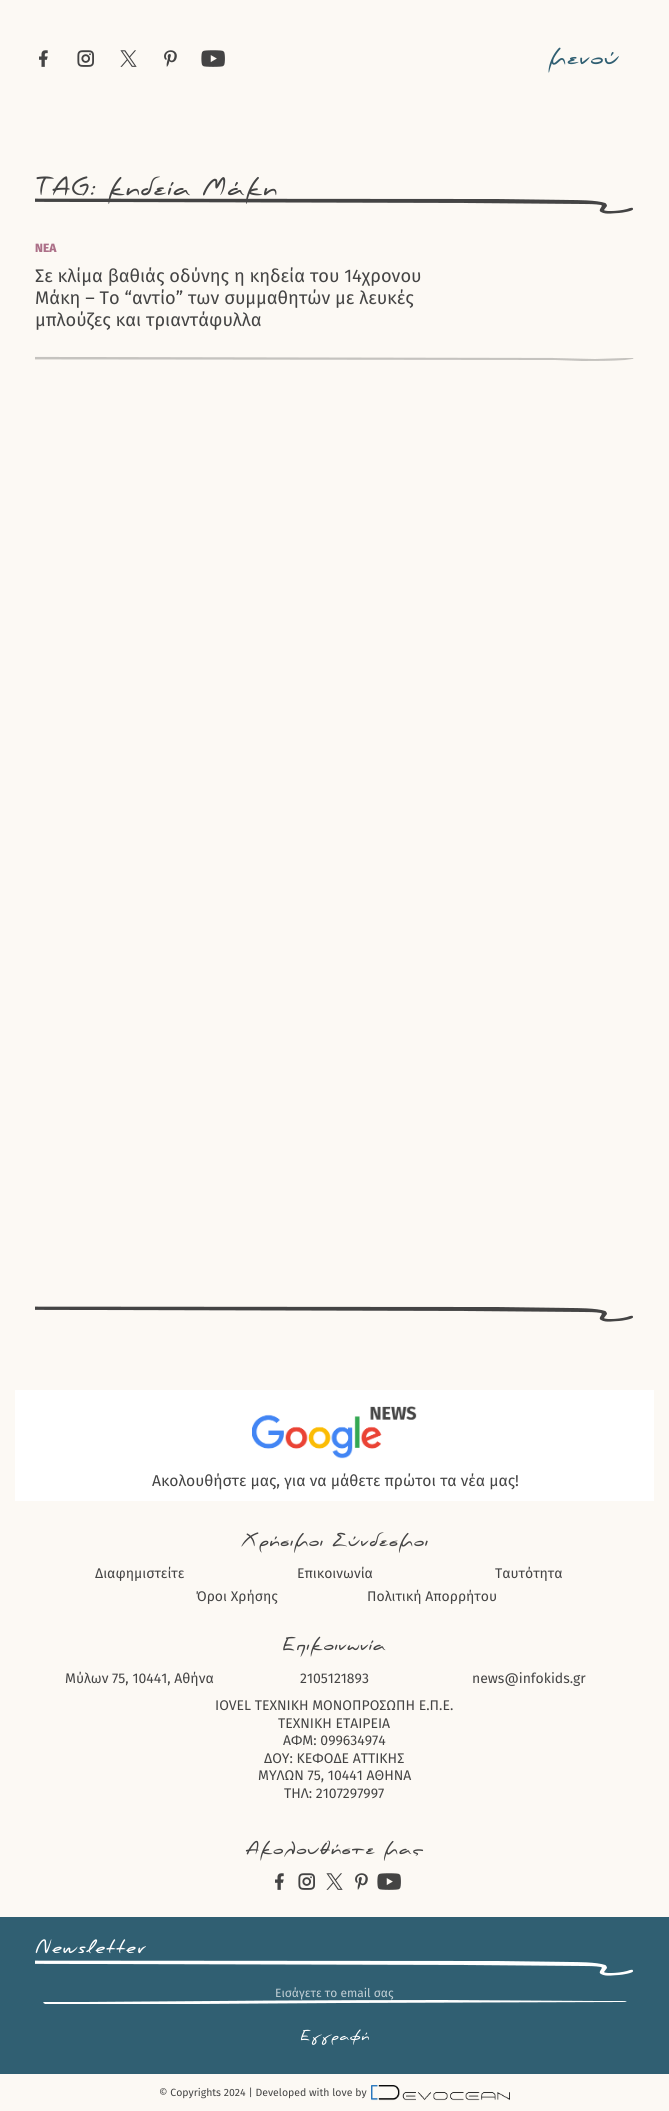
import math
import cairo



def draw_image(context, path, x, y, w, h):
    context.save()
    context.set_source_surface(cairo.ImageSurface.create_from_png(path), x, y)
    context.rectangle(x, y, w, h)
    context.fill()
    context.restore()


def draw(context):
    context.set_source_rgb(252 / 255, 249 / 255, 244 / 255)
    context.paint()
    draw_image(context, "images/1.png", 39, 50, 9, 17)
    draw_image(context, "images/2.png", 77, 50, 17, 17)
    draw_image(context, "images/3.png", 120, 50, 17, 17)
    draw_image(context, "images/4.png", 164, 50, 13, 17)
    draw_image(context, "images/5.png", 201, 50, 24, 17)
    context.save()
    context.rectangle(35, 197, 599, 17)
    context.clip()
    context.set_source_rgb(68 / 255, 68 / 255, 68 / 255)
    context.new_path()
    context.move_to(607, 206)
    context.line_to(604, 210)
    context.curve_to(605, 212, 623, 211, 630, 208)
    context.curve_to(631, 208, 633, 207, 633, 209)
    context.curve_to(634, 211, 621, 213, 619, 213)
    context.curve_to(614, 213, 606, 215, 601, 212)
    context.curve_to(597, 210, 604, 206, 601, 205)
    context.curve_to(595, 204, 588, 204, 583, 204)
    context.line_to(464, 203)
    context.line_to(-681, 200)
    context.line_to(-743, 199)
    context.line_to(-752, 198)
    context.line_to(495, 199)
    context.line_to(569, 200)
    context.curve_to(576, 200, 597, 200, 605, 203)
    context.curve_to(606, 203, 607, 205, 607, 206)
    context.close_path()
    context.fill()
    context.restore()
    context.save()
    context.rectangle(35, 356, 599, 5)
    context.clip()
    context.set_source_rgb(197 / 255, 195 / 255, 191 / 255)
    context.new_path()
    context.move_to(553, 358)
    context.line_to(-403, 356)
    context.curve_to(-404, 356, -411, 356, -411, 358)
    context.curve_to(-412, 359, -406, 358, -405, 358)
    context.line_to(-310, 359)
    context.line_to(547, 360)
    context.line_to(557, 360)
    context.line_to(555, 360)
    context.line_to(582, 361)
    context.curve_to(596, 361, 611, 361, 625, 360)
    context.line_to(632, 359)
    context.curve_to(633, 359, 634, 359, 633, 358)
    context.line_to(626, 358)
    context.line_to(595, 359)
    context.close_path()
    context.fill()
    context.restore()
    context.save()
    context.rectangle(35, 1305, 599, 17)
    context.clip()
    context.set_source_rgb(68 / 255, 68 / 255, 68 / 255)
    context.new_path()
    context.move_to(607, 1314)
    context.line_to(604, 1318)
    context.curve_to(605, 1320, 623, 1319, 630, 1316)
    context.curve_to(631, 1316, 633, 1315, 633, 1317)
    context.curve_to(634, 1319, 621, 1321, 619, 1321)
    context.curve_to(614, 1321, 606, 1323, 601, 1320)
    context.curve_to(597, 1318, 604, 1314, 601, 1313)
    context.curve_to(595, 1312, 588, 1312, 583, 1312)
    context.line_to(464, 1311)
    context.line_to(-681, 1308)
    context.line_to(-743, 1307)
    context.line_to(-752, 1306)
    context.line_to(495, 1307)
    context.line_to(569, 1308)
    context.curve_to(576, 1308, 597, 1308, 605, 1311)
    context.curve_to(606, 1311, 607, 1313, 607, 1314)
    context.close_path()
    context.fill()
    context.restore()
    context.set_source_rgb(1, 1, 1)
    context.rectangle(15, 1390, 639, 111)
    context.fill()
    draw_image(context, "images/6.png", 252, 1406, 165, 53)
    draw_image(context, "images/1.png", 275, 1873, 9, 17)
    draw_image(context, "images/2.png", 298, 1873, 17, 17)
    draw_image(context, "images/3.png", 326, 1873, 17, 17)
    draw_image(context, "images/4.png", 355, 1873, 13, 17)
    draw_image(context, "images/5.png", 377, 1873, 24, 17)
    context.set_source_rgb(48 / 255, 95 / 255, 114 / 255)
    context.rectangle(0, 1917, 669, 157)
    context.fill()
    context.save()
    context.rectangle(35, 1959, 599, 17)
    context.clip()
    context.set_source_rgb(1, 1, 1)
    context.new_path()
    context.move_to(607, 1968)
    context.line_to(604, 1972)
    context.curve_to(605, 1974, 623, 1973, 630, 1970)
    context.curve_to(631, 1970, 633, 1969, 633, 1971)
    context.curve_to(634, 1973, 621, 1975, 619, 1975)
    context.curve_to(614, 1975, 606, 1977, 601, 1974)
    context.curve_to(597, 1972, 604, 1968, 601, 1967)
    context.curve_to(595, 1966, 588, 1966, 583, 1966)
    context.line_to(464, 1965)
    context.line_to(-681, 1962)
    context.line_to(-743, 1961)
    context.line_to(-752, 1960)
    context.line_to(495, 1961)
    context.line_to(569, 1962)
    context.curve_to(576, 1962, 597, 1962, 605, 1965)
    context.curve_to(606, 1965, 607, 1967, 607, 1968)
    context.close_path()
    context.fill()
    context.restore()
    context.set_source_rgb(1, 1, 1)
    context.new_path()
    context.move_to(341, 2003)
    context.line_to(195, 2004)
    context.line_to(61, 2004)
    context.line_to(45, 2004)
    context.curve_to(44, 2003, 42, 2003, 44, 2002)
    context.line_to(85, 2002)
    context.curve_to(204, 2001, 324, 2000, 443, 2000)
    context.line_to(598, 2001)
    context.line_to(625, 2001)
    context.curve_to(630, 2002, 622, 2002, 622, 2002)
    context.close_path()
    context.fill()
    draw_image(context, "images/7.png", 371, 2085, 139, 16)
    context.select_font_face("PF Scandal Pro", cairo.FontSlant.NORMAL, cairo.FontWeight.BOLD)
    context.set_font_size(22.5)
    context.set_source_rgb(48 / 255, 95 / 255, 114 / 255)
    context.move_to(548, 64)
    context.show_text("μενού")
    context.set_font_size(24.4)
    context.set_source_rgb(68 / 255, 68 / 255, 68 / 255)
    context.move_to(35, 195)
    context.show_text("TAG: κηδεία Μάκη")
    context.select_font_face("Fira Sans ExtraBold")
    context.set_font_size(12)
    context.set_source_rgb(172 / 255, 112 / 255, 136 / 255)
    context.move_to(35, 252)
    context.show_text("ΝΕΑ")
    context.select_font_face("Fira Sans")
    context.set_font_size(18.25)
    context.set_source_rgb(68 / 255, 68 / 255, 68 / 255)
    context.move_to(35, 282)
    context.show_text("Σε κλίμα βαθιάς οδύνης η κηδεία του 14χρονου")
    context.move_to(35, 304)
    context.show_text("Μάκη – Το “αντίο” των συμμαθητών με λευκές")
    context.move_to(35, 326)
    context.show_text("μπλούζες και τριαντάφυλλα")
    context.set_font_size(15.7)
    context.move_to(152, 1486)
    context.show_text("Ακολουθήστε μας, για να μάθετε πρώτοι τα νέα μας!")
    context.select_font_face("PF Scandal Pro", cairo.FontSlant.NORMAL, cairo.FontWeight.BOLD)
    context.set_font_size(18)
    context.move_to(241, 1546)
    context.show_text("Χρήσιμοι Σύνδεσμοι")
    context.select_font_face("Fira Sans")
    context.set_font_size(14)
    context.move_to(95, 1578)
    context.show_text("Διαφημιστείτε")
    context.move_to(297, 1578)
    context.show_text("Επικοινωνία")
    context.move_to(495, 1578)
    context.show_text("Ταυτότητα")
    context.move_to(196, 1601)
    context.show_text("Όροι Χρήσης")
    context.move_to(367, 1601)
    context.show_text("Πολιτική Απορρήτου")
    context.select_font_face("PF Scandal Pro", cairo.FontSlant.NORMAL, cairo.FontWeight.BOLD)
    context.set_font_size(18)
    context.move_to(282, 1650)
    context.show_text("Επικοινωνία")
    context.select_font_face("Fira Sans")
    context.set_font_size(14)
    context.move_to(65, 1683)
    context.show_text("Μύλων 75, 10441, Αθήνα")
    context.move_to(300, 1683)
    context.show_text("2105121893")
    context.move_to(472, 1683)
    context.show_text("news@infokids.gr")
    context.move_to(215, 1710)
    context.show_text("IOVEL ΤΕΧΝΙΚΗ ΜΟΝΟΠΡΟΣΩΠΗ Ε.Π.Ε.")
    context.move_to(278, 1728)
    context.show_text("ΤΕΧΝΙΚΗ ΕΤΑΙΡΕΙΑ")
    context.move_to(283, 1745)
    context.show_text("ΑΦΜ: 099634974")
    context.move_to(264, 1763)
    context.show_text("ΔΟΥ: ΚΕΦΟΔΕ ΑΤΤΙΚΗΣ")
    context.move_to(258, 1780)
    context.show_text("ΜΥΛΩΝ 75, 10441 ΑΘΗΝΑ")
    context.move_to(284, 1798)
    context.show_text("ΤΗΛ: 2107297997")
    context.select_font_face("PF Scandal Pro", cairo.FontSlant.NORMAL, cairo.FontWeight.BOLD)
    context.set_font_size(18)
    context.move_to(245, 1854)
    context.show_text("Ακολουθήστε μας")
    context.set_font_size(18.25)
    context.set_source_rgb(1, 1, 1)
    context.move_to(35, 1953)
    context.show_text("Newsletter")
    context.select_font_face("Fira Sans")
    context.set_font_size(12)
    context.set_source_rgb(193 / 255, 207 / 255, 213 / 255)
    context.move_to(275, 1997)
    context.show_text("Εισάγετε το email σας")
    context.select_font_face("PF Scandal Pro", cairo.FontSlant.NORMAL, cairo.FontWeight.BOLD)
    context.set_font_size(14)
    context.set_source_rgb(1, 1, 1)
    context.move_to(300, 2040)
    context.show_text("Εγγραφή")
    context.select_font_face("Fira Sans")
    context.set_font_size(10.5)
    context.set_source_rgb(68 / 255, 68 / 255, 68 / 255)
    context.move_to(159, 2096)
    context.show_text("© Copyrights 2024 | Developed with love by")


surface = cairo.ImageSurface(cairo.Format.RGB24, 669, 2111)
context = cairo.Context(surface)
options = cairo.FontOptions()
options.set_hint_metrics(cairo.HintMetrics.OFF)
options.set_hint_style(cairo.HintStyle.NONE)
context.set_font_options(options)
context.set_miter_limit(4)
draw(context)
surface.write_to_png("out.png")
